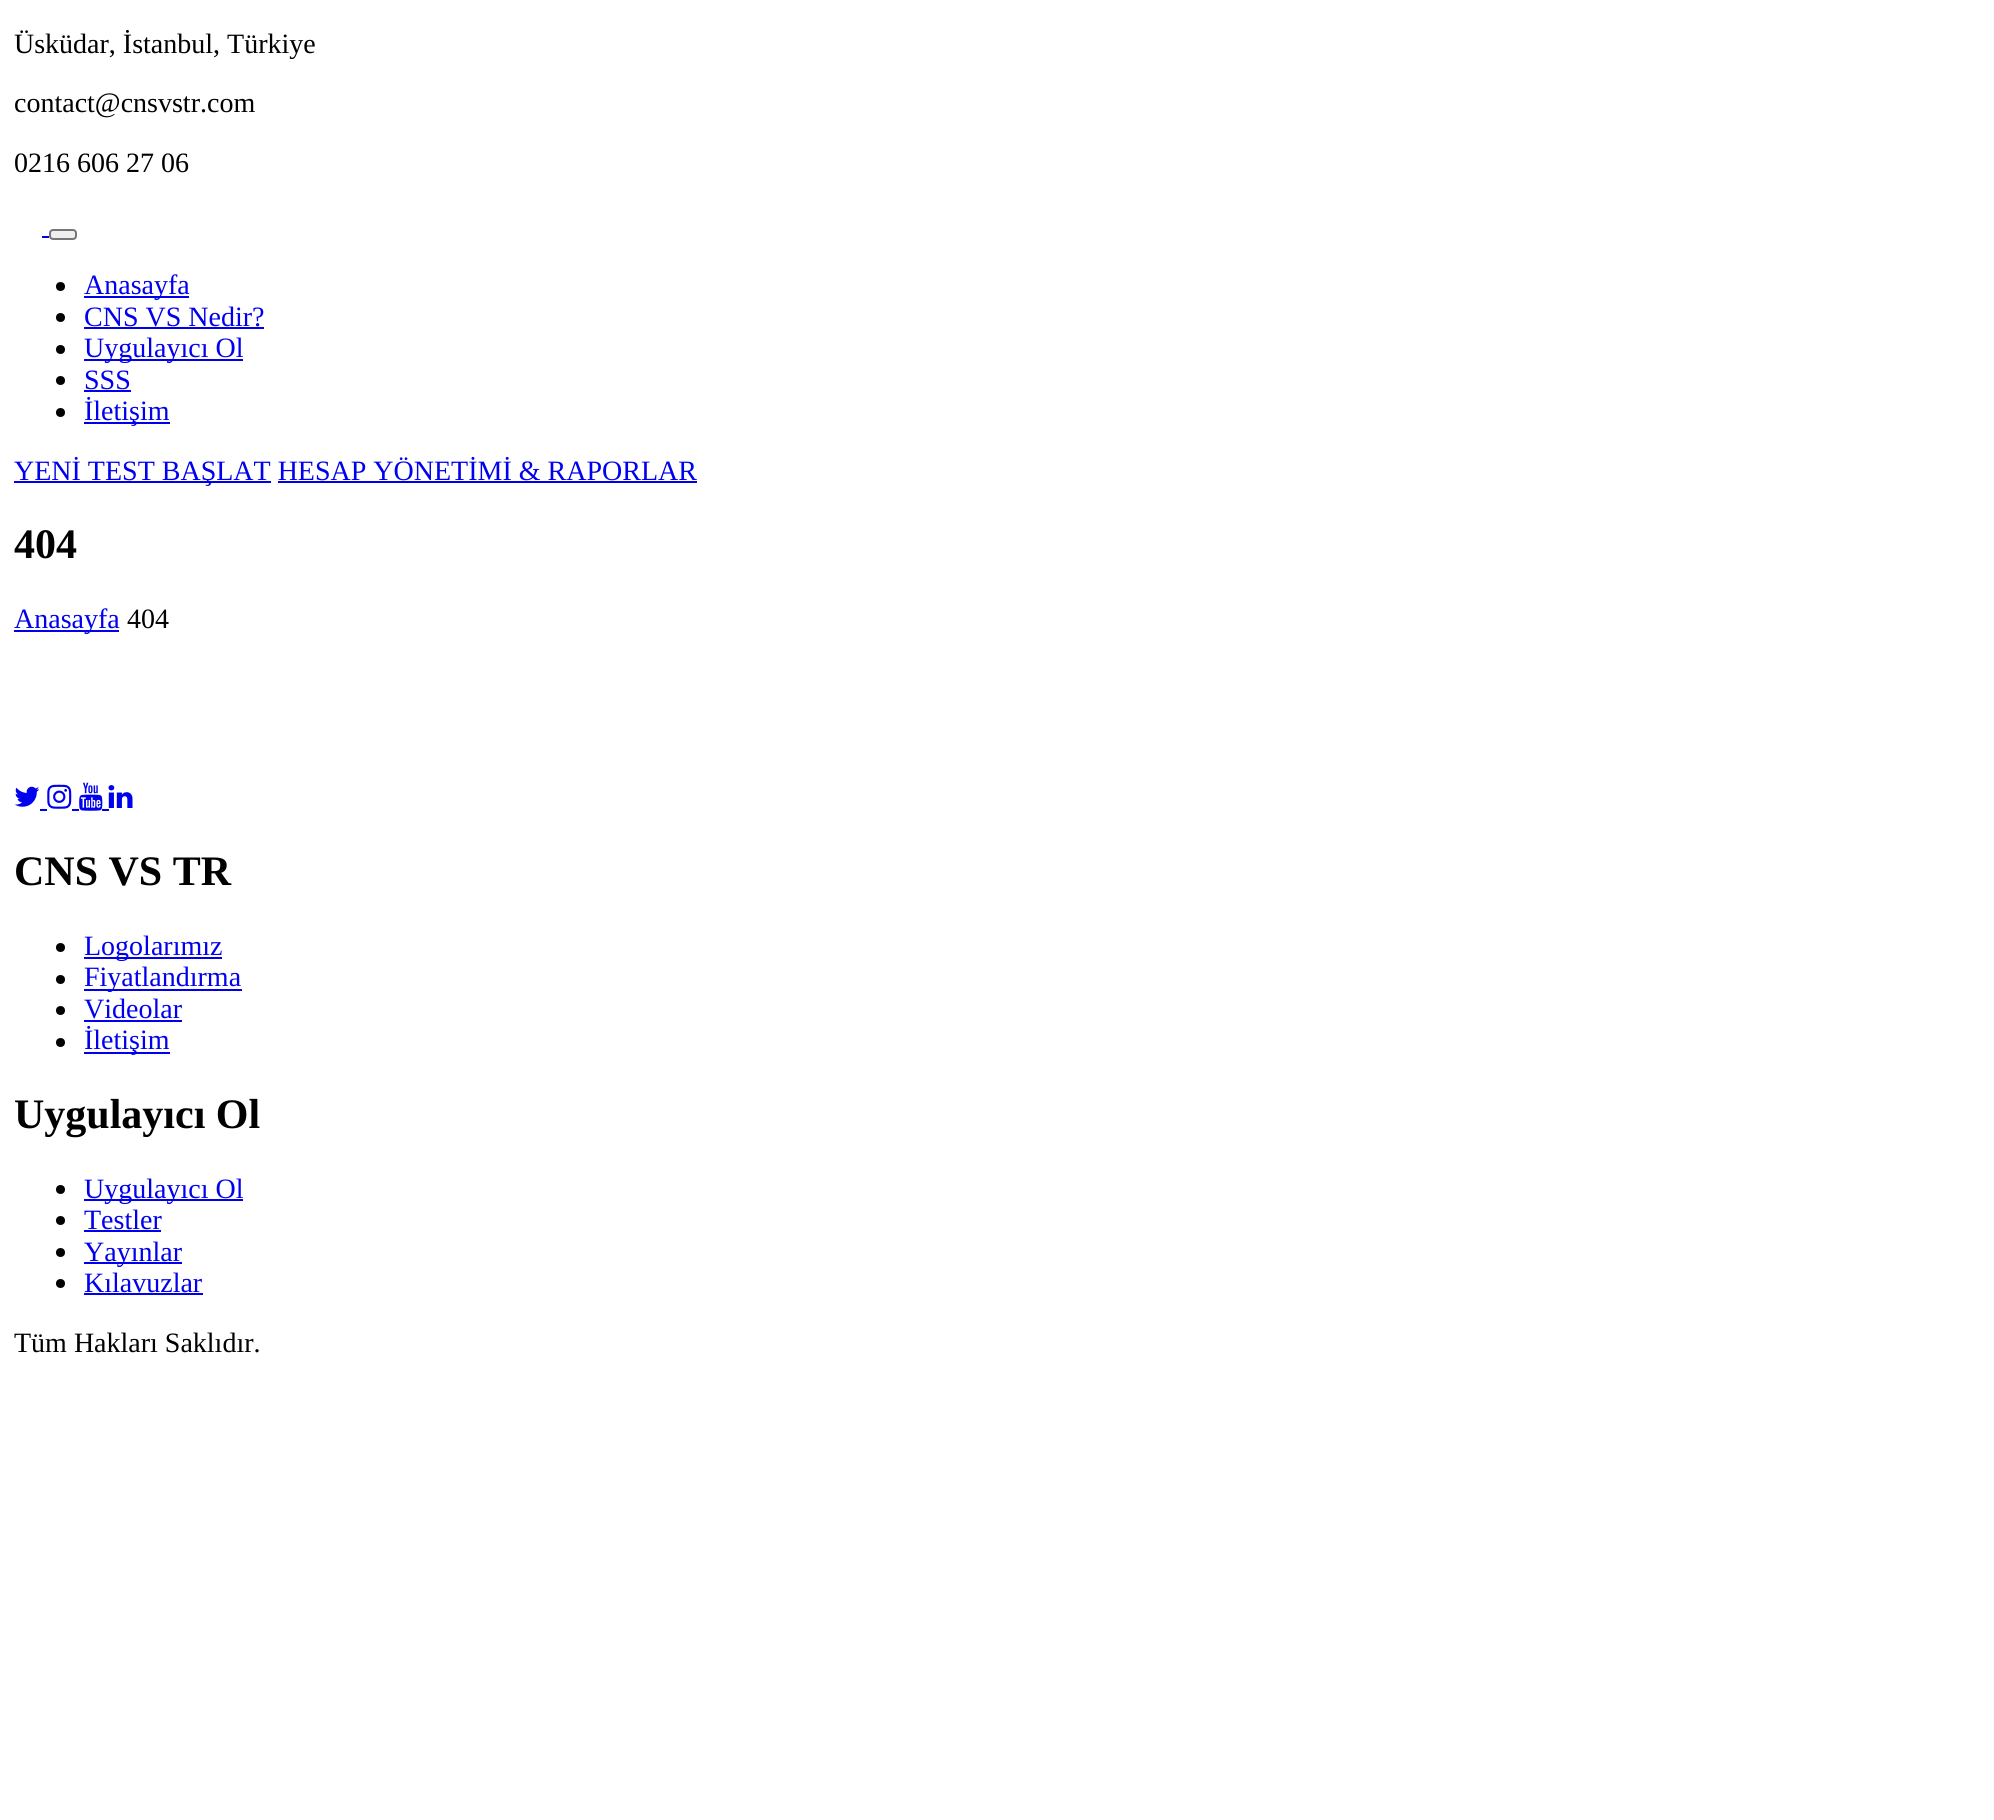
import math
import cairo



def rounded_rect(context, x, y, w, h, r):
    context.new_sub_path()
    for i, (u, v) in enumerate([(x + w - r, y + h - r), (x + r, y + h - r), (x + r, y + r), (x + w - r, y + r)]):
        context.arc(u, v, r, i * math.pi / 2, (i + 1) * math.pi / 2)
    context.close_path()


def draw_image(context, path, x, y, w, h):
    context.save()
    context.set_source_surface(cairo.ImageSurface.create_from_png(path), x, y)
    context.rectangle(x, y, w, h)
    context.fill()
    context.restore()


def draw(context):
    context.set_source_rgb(1, 1, 1)
    context.paint()
    context.set_source_rgb(0, 0, 238 / 255)
    context.rectangle(42, 236, 7, 2)
    context.fill()
    context.set_source_rgb(239 / 255, 239 / 255, 239 / 255)
    rounded_rect(context, 50, 230, 26, 9, 3)
    context.fill_preserve()
    context.set_source_rgb(118 / 255, 118 / 255, 118 / 255)
    context.stroke()
    context.set_source_rgb(0, 0, 0)
    context.arc(60.5, 286.5, 4.5, 0, 2 * math.pi)
    context.fill()
    context.set_source_rgb(0, 0, 238 / 255)
    context.rectangle(84, 296, 105, 2)
    context.fill()
    context.set_source_rgb(0, 0, 0)
    context.arc(60.5, 317.5, 4.5, 0, 2 * math.pi)
    context.fill()
    context.set_source_rgb(0, 0, 238 / 255)
    context.rectangle(84, 327, 180, 2)
    context.fill()
    context.set_source_rgb(0, 0, 0)
    context.arc(60.5, 349.5, 4.5, 0, 2 * math.pi)
    context.fill()
    context.set_source_rgb(0, 0, 238 / 255)
    context.rectangle(84, 359, 159, 2)
    context.fill()
    context.set_source_rgb(0, 0, 0)
    context.arc(60.5, 380.5, 4.5, 0, 2 * math.pi)
    context.fill()
    context.set_source_rgb(0, 0, 238 / 255)
    context.rectangle(84, 390, 47, 2)
    context.fill()
    context.set_source_rgb(0, 0, 0)
    context.arc(60.5, 412.5, 4.5, 0, 2 * math.pi)
    context.fill()
    context.set_source_rgb(0, 0, 238 / 255)
    context.rectangle(84, 422, 86, 2)
    context.fill()
    context.rectangle(14, 481, 257, 2)
    context.fill()
    context.rectangle(278, 481, 419, 2)
    context.fill()
    context.rectangle(14, 630, 105, 2)
    context.fill()
    draw_image(context, "images/1.png", 14, 786, 26, 21)
    context.rectangle(40, 809, 7, 2)
    context.fill()
    draw_image(context, "images/2.png", 47, 784, 25, 25)
    context.rectangle(72, 809, 7, 2)
    context.fill()
    draw_image(context, "images/3.png", 79, 782, 24, 29)
    context.rectangle(102, 809, 7, 2)
    context.fill()
    draw_image(context, "images/4.png", 108, 785, 25, 23)
    context.set_source_rgb(0, 0, 0)
    context.arc(60.5, 947.5, 4.5, 0, 2 * math.pi)
    context.fill()
    context.set_source_rgb(0, 0, 238 / 255)
    context.rectangle(84, 957, 138, 2)
    context.fill()
    context.set_source_rgb(0, 0, 0)
    context.arc(60.5, 979.5, 4.5, 0, 2 * math.pi)
    context.fill()
    context.set_source_rgb(0, 0, 238 / 255)
    context.rectangle(84, 989, 158, 2)
    context.fill()
    context.set_source_rgb(0, 0, 0)
    context.arc(60.5, 1010.5, 4.5, 0, 2 * math.pi)
    context.fill()
    context.set_source_rgb(0, 0, 238 / 255)
    context.rectangle(84, 1020, 98, 2)
    context.fill()
    context.set_source_rgb(0, 0, 0)
    context.arc(60.5, 1042.5, 4.5, 0, 2 * math.pi)
    context.fill()
    context.set_source_rgb(0, 0, 238 / 255)
    context.rectangle(84, 1052, 86, 2)
    context.fill()
    context.set_source_rgb(0, 0, 0)
    context.arc(60.5, 1189.5, 4.5, 0, 2 * math.pi)
    context.fill()
    context.set_source_rgb(0, 0, 238 / 255)
    context.rectangle(84, 1199, 159, 2)
    context.fill()
    context.set_source_rgb(0, 0, 0)
    context.arc(60.5, 1220.5, 4.5, 0, 2 * math.pi)
    context.fill()
    context.set_source_rgb(0, 0, 238 / 255)
    context.rectangle(84, 1230, 77, 2)
    context.fill()
    context.set_source_rgb(0, 0, 0)
    context.arc(60.5, 1252.5, 4.5, 0, 2 * math.pi)
    context.fill()
    context.set_source_rgb(0, 0, 238 / 255)
    context.rectangle(84, 1262, 98, 2)
    context.fill()
    context.set_source_rgb(0, 0, 0)
    context.arc(60.5, 1283.5, 4.5, 0, 2 * math.pi)
    context.fill()
    context.set_source_rgb(0, 0, 238 / 255)
    context.rectangle(84, 1293, 119, 2)
    context.fill()
    context.select_font_face("Liberation Serif")
    context.set_font_size(28)
    context.set_source_rgb(0, 0, 0)
    context.move_to(14, 53)
    context.show_text("Üsküdar, İstanbul, Türkiye")
    context.move_to(14, 112)
    context.show_text("contact@cnsvstr.com")
    context.move_to(14, 172)
    context.show_text("0216 606 27 06")
    context.set_source_rgb(0, 0, 238 / 255)
    context.move_to(84, 294)
    context.show_text("Anasayfa")
    context.move_to(84, 326)
    context.show_text("CNS VS Nedir?")
    context.move_to(84, 357)
    context.show_text("Uygulayıcı Ol")
    context.move_to(84, 389)
    context.show_text("SSS")
    context.move_to(84, 420)
    context.show_text("İletişim")
    context.move_to(14, 480)
    context.show_text("YENİ TEST BAŞLAT HESAP YÖNETİMİ & RAPORLAR")
    context.select_font_face("Liberation Serif", cairo.FontSlant.NORMAL, cairo.FontWeight.BOLD)
    context.set_font_size(42)
    context.set_source_rgb(0, 0, 0)
    context.move_to(14, 558)
    context.show_text("404")
    context.select_font_face("Liberation Serif")
    context.set_font_size(28)
    context.set_source_rgb(0, 0, 238 / 255)
    context.move_to(14, 628)
    context.show_text("Anasayfa")
    context.set_source_rgb(0, 0, 0)
    context.move_to(127, 628)
    context.show_text("404")
    context.select_font_face("Liberation Serif", cairo.FontSlant.NORMAL, cairo.FontWeight.BOLD)
    context.set_font_size(42)
    context.move_to(14, 885)
    context.show_text("CNS VS TR")
    context.select_font_face("Liberation Serif")
    context.set_font_size(28)
    context.set_source_rgb(0, 0, 238 / 255)
    context.move_to(84, 955)
    context.show_text("Logolarımız")
    context.move_to(84, 986)
    context.show_text("Fiyatlandırma")
    context.move_to(84, 1018)
    context.show_text("Videolar")
    context.move_to(84, 1049)
    context.show_text("İletişim")
    context.select_font_face("Liberation Serif", cairo.FontSlant.NORMAL, cairo.FontWeight.BOLD)
    context.set_font_size(42)
    context.set_source_rgb(0, 0, 0)
    context.move_to(14, 1128)
    context.show_text("Uygulayıcı Ol")
    context.select_font_face("Liberation Serif")
    context.set_font_size(28)
    context.set_source_rgb(0, 0, 238 / 255)
    context.move_to(84, 1198)
    context.show_text("Uygulayıcı Ol")
    context.move_to(84, 1229)
    context.show_text("Testler")
    context.move_to(84, 1261)
    context.show_text("Yayınlar")
    context.move_to(84, 1292)
    context.show_text("Kılavuzlar")
    context.set_source_rgb(0, 0, 0)
    context.move_to(14, 1352)
    context.show_text("Tüm Hakları Saklıdır.")


surface = cairo.ImageSurface(cairo.Format.RGB24, 1994, 1820)
context = cairo.Context(surface)
options = cairo.FontOptions()
options.set_hint_metrics(cairo.HintMetrics.OFF)
options.set_hint_style(cairo.HintStyle.NONE)
context.set_font_options(options)
context.set_miter_limit(4)
draw(context)
surface.write_to_png("out.png")
